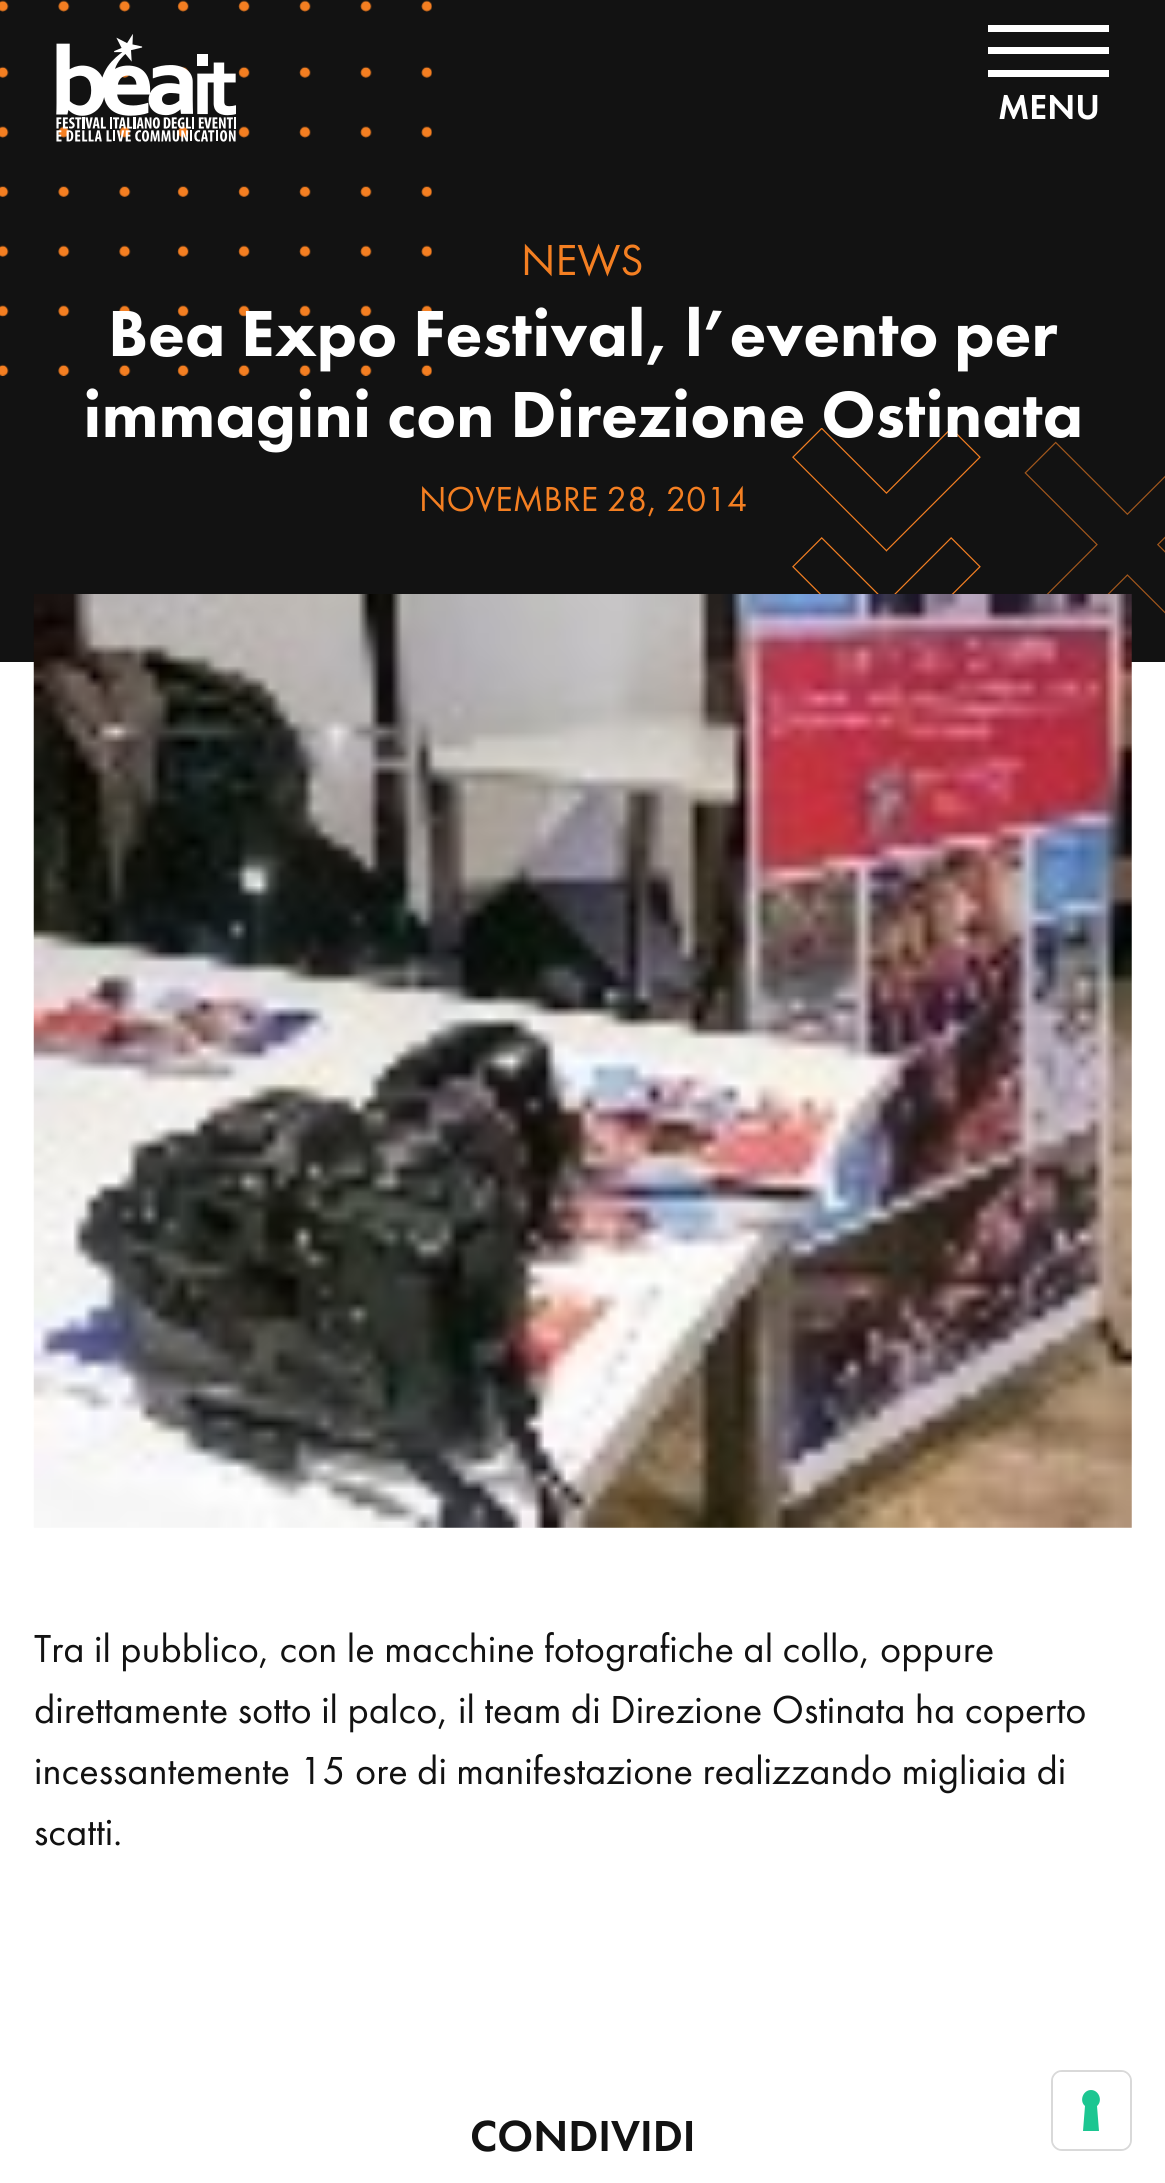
import math
import cairo



def rounded_rect(context, x, y, w, h, r):
    context.new_sub_path()
    for i, (u, v) in enumerate([(x + w - r, y + h - r), (x + r, y + h - r), (x + r, y + r), (x + w - r, y + r)]):
        context.arc(u, v, r, i * math.pi / 2, (i + 1) * math.pi / 2)
    context.close_path()


def draw_image(context, path, x, y, w, h):
    context.save()
    context.set_source_surface(cairo.ImageSurface.create_from_png(path), x, y)
    context.rectangle(x, y, w, h)
    context.fill()
    context.restore()


def draw(context):
    context.set_source_rgb(18 / 255, 18 / 255, 18 / 255)
    context.paint()
    draw_image(context, "images/2.png", 0, 0, 432, 376)
    draw_image(context, "images/1.png", 56, 34, 180, 108)
    context.set_source_rgb(1, 1, 1)
    context.rectangle(988, 47, 121, 7)
    context.fill()
    context.rectangle(988, 25, 121, 7)
    context.fill()
    context.rectangle(988, 70, 121, 7)
    context.fill()
    draw_image(context, "images/3.png", 792, 428, 373, 186)
    context.rectangle(0, 662, 1165, 1521)
    context.fill()
    draw_image(context, "images/4.png", 33, 594, 1099, 934)
    rounded_rect(context, 1052, 2071, 79, 79, 10)
    context.set_source_rgb(217 / 255, 217 / 255, 217 / 255)
    context.stroke()
    context.set_source_rgb(1, 1, 1)
    rounded_rect(context, 1053, 2072, 77, 77, 9)
    context.fill()
    context.set_source_rgb(28 / 255, 198 / 255, 145 / 255)
    context.set_fill_rule(cairo.FillRule.EVEN_ODD)
    context.new_path()
    context.move_to(1091, 2090)
    context.curve_to(1099, 2090, 1103, 2101, 1097, 2106)
    context.line_to(1099, 2131)
    context.line_to(1083, 2131)
    context.line_to(1085, 2106)
    context.curve_to(1079, 2101, 1083, 2090, 1091, 2090)
    context.close_path()
    context.fill()
    context.select_font_face("Futura PT Medium")
    context.set_font_size(36)
    context.set_source_rgb(1, 1, 1)
    context.move_to(998, 119)
    context.show_text("MENU")
    context.select_font_face("Futura PT")
    context.set_font_size(45)
    context.set_source_rgb(244 / 255, 127 / 255, 34 / 255)
    context.move_to(521, 275)
    context.show_text("NEWS")
    context.select_font_face("Futura PT Black")
    context.set_font_size(67.5)
    context.set_source_rgb(1, 1, 1)
    context.move_to(108, 356)
    context.show_text("Bea Expo Festival, l’evento per")
    context.move_to(83, 437)
    context.show_text("immagini con Direzione Ostinata")
    context.select_font_face("Futura PT")
    context.set_font_size(36)
    context.set_source_rgb(244 / 255, 127 / 255, 34 / 255)
    context.move_to(419, 511)
    context.show_text("NOVEMBRE 28, 2014")
    context.set_font_size(40.5)
    context.set_source_rgb(18 / 255, 18 / 255, 18 / 255)
    context.move_to(34, 1662)
    context.show_text("Tra il pubblico, con le macchine fotografiche al collo, oppure")
    context.move_to(34, 1723)
    context.show_text("direttamente sotto il palco, il team di Direzione Ostinata ha coperto")
    context.move_to(34, 1784)
    context.show_text("incessantemente 15 ore di manifestazione realizzando migliaia di")
    context.move_to(34, 1845)
    context.show_text("scatti.")
    context.select_font_face("Futura PT Medium")
    context.set_font_size(45)
    context.move_to(470, 2151)
    context.show_text("CONDIVIDI")


surface = cairo.ImageSurface(cairo.Format.RGB24, 1165, 2183)
context = cairo.Context(surface)
options = cairo.FontOptions()
options.set_hint_metrics(cairo.HintMetrics.OFF)
options.set_hint_style(cairo.HintStyle.NONE)
context.set_font_options(options)
context.set_miter_limit(4)
draw(context)
surface.write_to_png("out.png")
